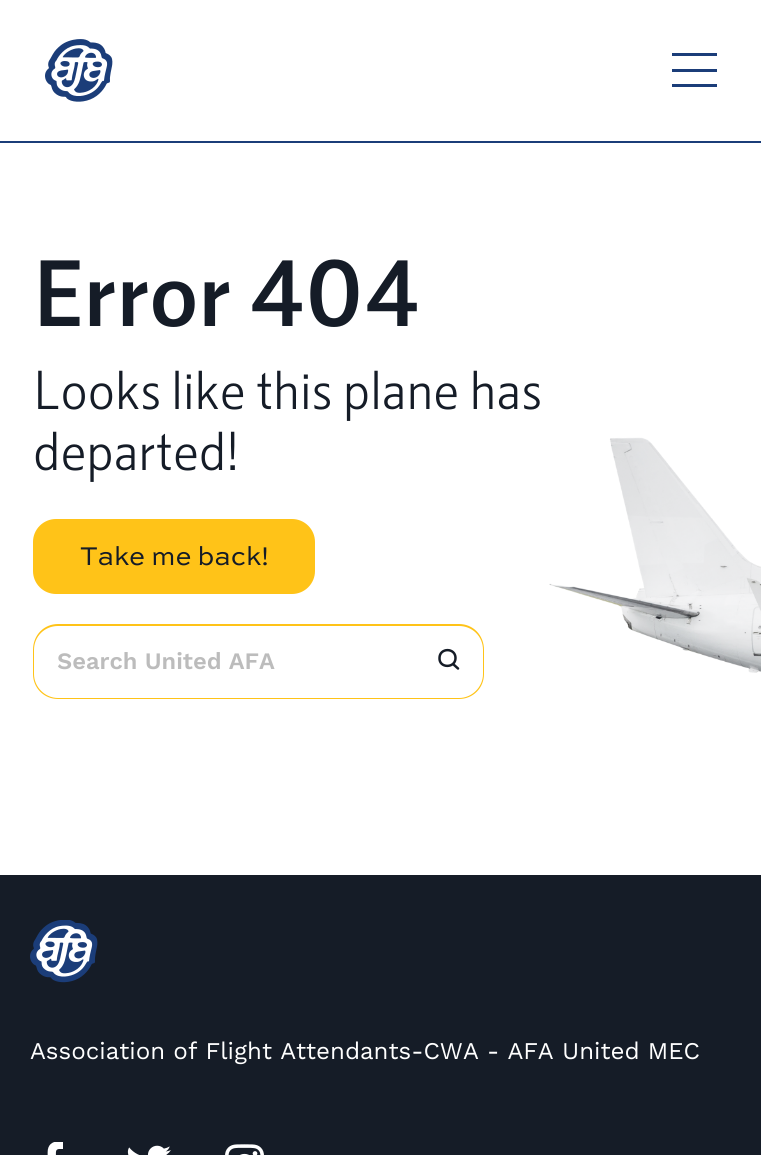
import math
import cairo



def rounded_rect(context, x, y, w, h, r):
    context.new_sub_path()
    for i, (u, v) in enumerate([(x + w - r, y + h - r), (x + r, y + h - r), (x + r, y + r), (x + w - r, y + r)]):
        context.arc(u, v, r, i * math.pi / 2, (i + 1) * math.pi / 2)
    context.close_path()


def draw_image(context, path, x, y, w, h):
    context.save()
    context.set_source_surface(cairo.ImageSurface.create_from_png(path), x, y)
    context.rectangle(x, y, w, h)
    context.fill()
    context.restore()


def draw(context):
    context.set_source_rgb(1, 1, 1)
    context.paint()
    context.set_source_rgb(27 / 255, 61 / 255, 121 / 255)
    context.rectangle(0, 141, 761, 2)
    context.fill()
    draw_image(context, "images/1.png", 45, 39, 68, 63)
    context.rectangle(672, 53, 45, 3)
    context.fill()
    context.rectangle(672, 69, 45, 3)
    context.fill()
    context.rectangle(672, 84, 45, 3)
    context.fill()
    context.set_source_rgb(1, 195 / 255, 24 / 255)
    rounded_rect(context, 34, 520, 280, 73, 22)
    context.fill_preserve()
    context.stroke()
    context.set_fill_rule(cairo.FillRule.EVEN_ODD)
    context.new_path()
    context.move_to(58, 624)
    context.line_to(416, 624)
    context.line_to(416, 699)
    context.line_to(58, 699)
    context.curve_to(44, 699, 33, 688, 33, 674)
    context.line_to(33, 650)
    context.curve_to(33, 635, 44, 624, 58, 624)
    context.close_path()
    context.move_to(58, 626)
    context.line_to(416, 626)
    context.line_to(416, 698)
    context.line_to(58, 698)
    context.curve_to(45, 698, 34, 687, 34, 674)
    context.line_to(34, 650)
    context.curve_to(34, 636, 45, 626, 58, 626)
    context.close_path()
    context.fill()
    context.new_path()
    context.move_to(416, 624)
    context.line_to(459, 624)
    context.curve_to(473, 624, 484, 635, 484, 650)
    context.line_to(484, 674)
    context.curve_to(484, 688, 473, 699, 459, 699)
    context.line_to(416, 699)
    context.close_path()
    context.move_to(416, 626)
    context.line_to(459, 626)
    context.curve_to(472, 626, 483, 636, 483, 650)
    context.line_to(483, 674)
    context.curve_to(483, 687, 472, 698, 459, 698)
    context.line_to(416, 698)
    context.close_path()
    context.fill()
    context.new_path()
    context.move_to(453, 664)
    context.line_to(458, 668.5)
    context.move_to(455.5, 658)
    context.curve_to(455.5, 668.5, 439, 668.5, 439.5, 658)
    context.curve_to(439.5, 647.5, 455.5, 647.5, 455.5, 658)
    context.close_path()
    context.set_source_rgb(21 / 255, 28 / 255, 39 / 255)
    context.set_line_width(2.5)
    context.set_line_cap(cairo.LineCap.ROUND)
    context.set_line_join(cairo.LineJoin.ROUND)
    context.stroke()
    draw_image(context, "images/2.png", 549, 437, 212, 236)
    context.rectangle(0, 875, 761, 280)
    context.fill()
    draw_image(context, "images/3.png", 30, 920, 68, 63)
    draw_image(context, "images/4.png", 47, 1142, 16, 13)
    draw_image(context, "images/5.png", 127, 1145, 44, 10)
    draw_image(context, "images/6.png", 225, 1144, 39, 11)
    context.select_font_face("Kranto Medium")
    context.set_font_size(90)
    context.move_to(33, 326)
    context.show_text("Error 404")
    context.select_font_face("Kranto Light")
    context.set_font_size(52.5)
    context.move_to(33, 409)
    context.show_text("Looks like this plane has")
    context.move_to(33, 470)
    context.show_text("departed!")
    context.select_font_face("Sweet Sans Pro")
    context.set_font_size(27)
    context.move_to(80, 565)
    context.show_text("Take me back!")
    context.select_font_face("Work Sans SemiBold")
    context.set_font_size(23.6)
    context.set_source_rgb(188 / 255, 188 / 255, 188 / 255)
    context.move_to(57, 669)
    context.show_text("Search United AFA")
    context.select_font_face("Work Sans")
    context.set_font_size(24)
    context.set_source_rgb(1, 1, 1)
    context.move_to(30, 1059)
    context.show_text("Association of Flight Attendants-CWA - AFA United MEC")


surface = cairo.ImageSurface(cairo.Format.RGB24, 761, 1155)
context = cairo.Context(surface)
options = cairo.FontOptions()
options.set_hint_metrics(cairo.HintMetrics.OFF)
options.set_hint_style(cairo.HintStyle.NONE)
context.set_font_options(options)
context.set_miter_limit(4)
draw(context)
surface.write_to_png("out.png")
